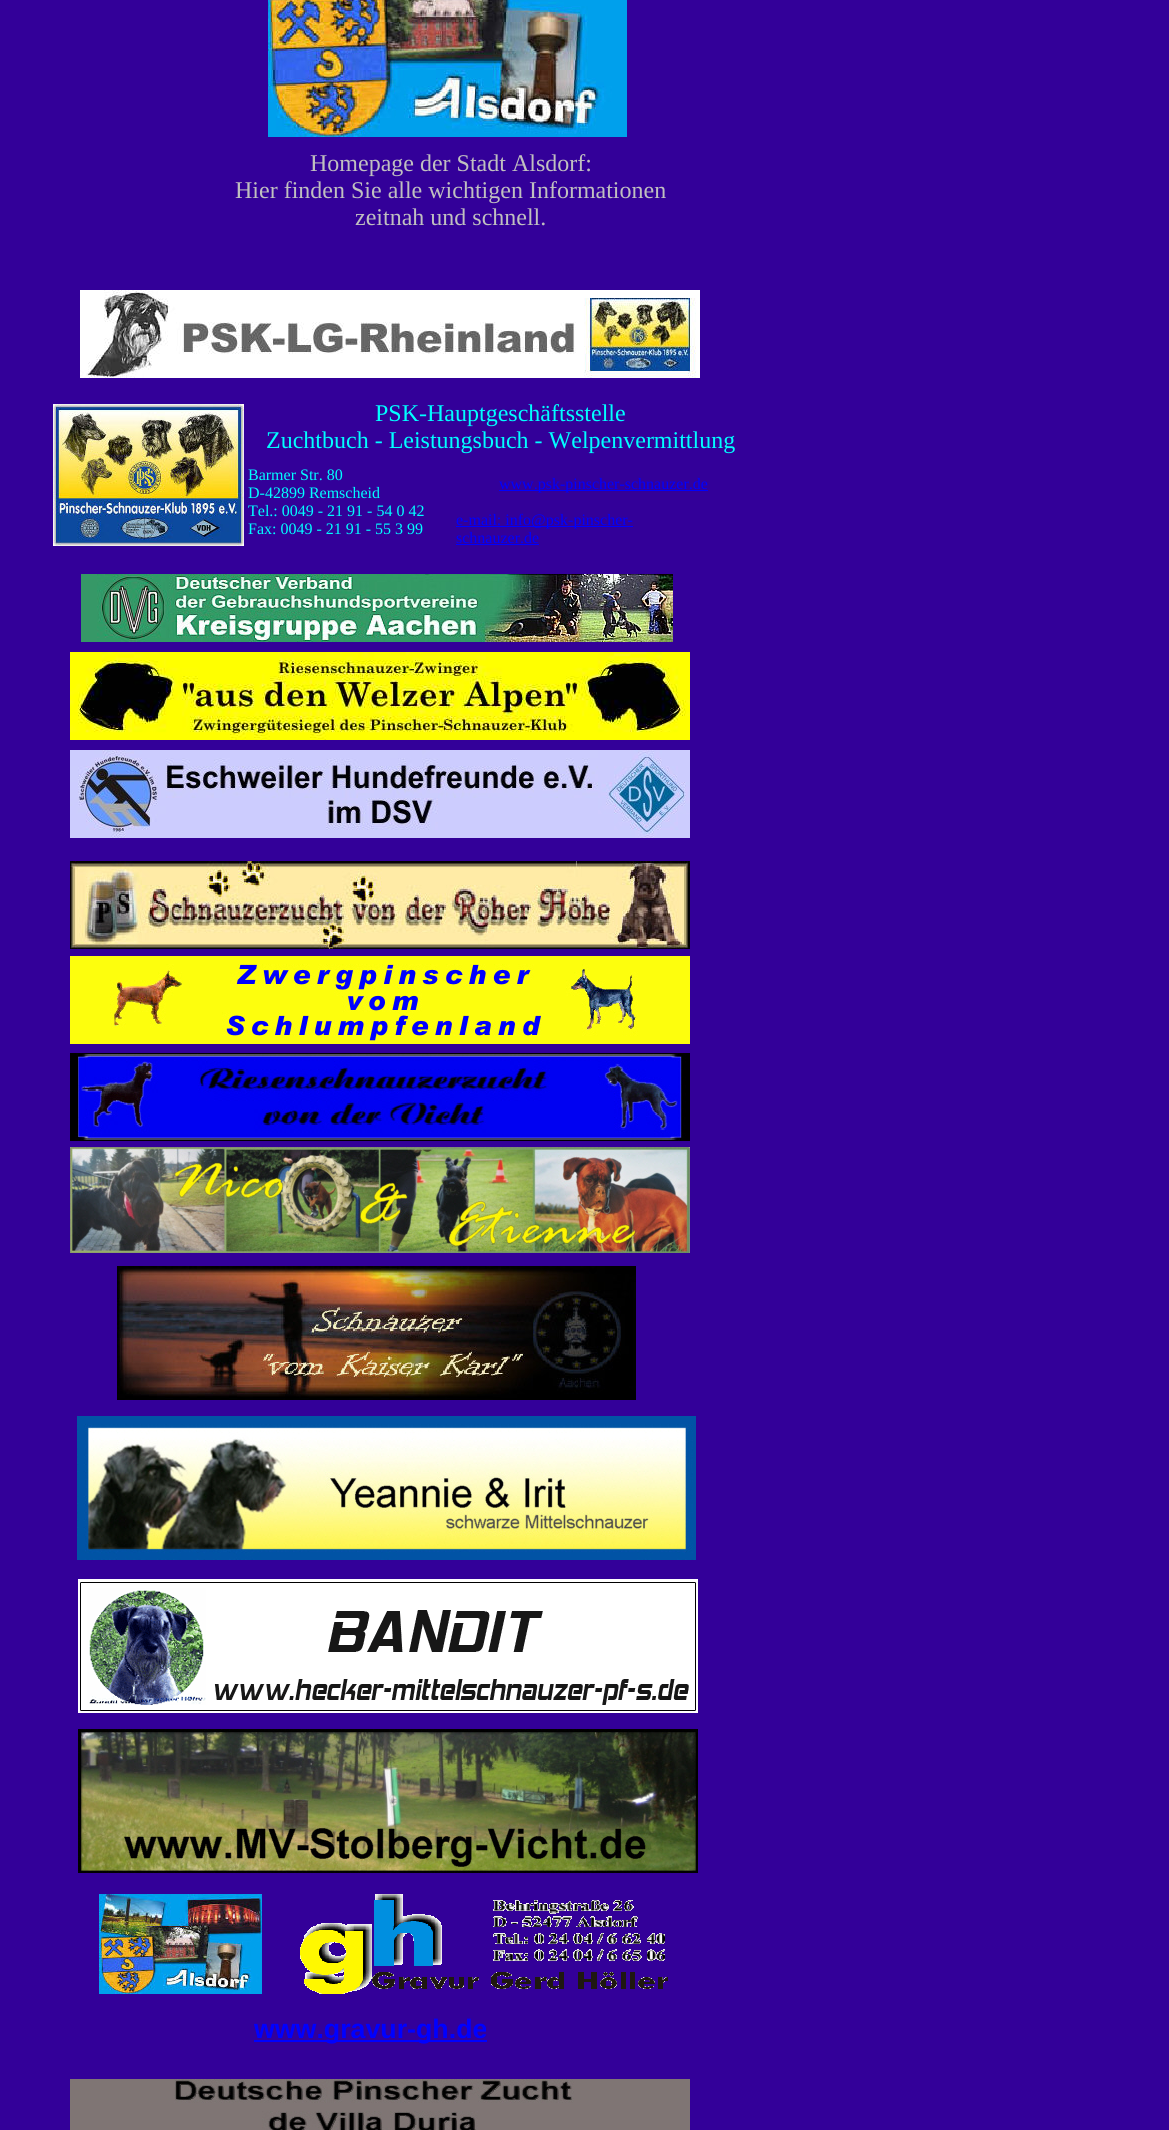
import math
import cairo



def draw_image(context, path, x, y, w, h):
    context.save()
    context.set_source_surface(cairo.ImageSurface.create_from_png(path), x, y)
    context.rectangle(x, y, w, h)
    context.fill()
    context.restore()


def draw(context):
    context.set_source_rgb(51 / 255, 0, 153 / 255)
    context.paint()
    draw_image(context, "images/1.png", 268, 0, 359, 137)
    draw_image(context, "images/2.png", 80, 290, 620, 88)
    draw_image(context, "images/3.png", 53, 404, 191, 142)
    context.set_source_rgb(0, 0, 1)
    context.rectangle(499, 490, 209, 1)
    context.fill()
    context.rectangle(456, 526, 177, 1)
    context.fill()
    context.rectangle(456, 544, 83, 1)
    context.fill()
    draw_image(context, "images/4.png", 81, 574, 592, 68)
    draw_image(context, "images/5.png", 70, 652, 620, 88)
    draw_image(context, "images/6.png", 70, 750, 620, 88)
    draw_image(context, "images/7.png", 70, 861, 620, 88)
    draw_image(context, "images/8.png", 70, 956, 620, 88)
    draw_image(context, "images/9.png", 70, 1053, 620, 88)
    draw_image(context, "images/10.png", 70, 1147, 620, 106)
    draw_image(context, "images/11.png", 117, 1266, 519, 134)
    draw_image(context, "images/12.png", 77, 1416, 619, 144)
    draw_image(context, "images/13.png", 78, 1579, 620, 134)
    draw_image(context, "images/14.png", 78, 1729, 620, 144)
    draw_image(context, "images/15.png", 99, 1894, 163, 100)
    draw_image(context, "images/16.png", 300, 1894, 368, 100)
    context.rectangle(254, 2040, 233, 2)
    context.fill()
    draw_image(context, "images/17.png", 70, 2079, 620, 51)
    context.select_font_face("Liberation Serif")
    context.set_font_size(24)
    context.set_source_rgb(192 / 255, 192 / 255, 192 / 255)
    context.move_to(310, 171)
    context.show_text("Homepage der Stadt Alsdorf:")
    context.move_to(235, 198)
    context.show_text("Hier finden Sie alle wichtigen Informationen")
    context.move_to(355, 225)
    context.show_text("zeitnah und schnell.")
    context.set_source_rgb(0, 1, 1)
    context.move_to(375, 421)
    context.show_text("PSK-Hauptgeschäftsstelle")
    context.move_to(266, 448)
    context.show_text("Zuchtbuch - Leistungsbuch - Welpenvermittlung")
    context.set_font_size(16)
    context.move_to(248, 480)
    context.show_text("Barmer Str. 80")
    context.move_to(248, 498)
    context.show_text("D-42899 Remscheid")
    context.move_to(248, 516)
    context.show_text("Tel.: 0049 - 21 91 - 54 0 42")
    context.move_to(248, 534)
    context.show_text("Fax: 0049 - 21 91 - 55 3 99")
    context.set_source_rgb(0, 0, 1)
    context.move_to(499, 489)
    context.show_text("www.psk-pinscher-schnauzer.de")
    context.move_to(456, 525)
    context.show_text("e-mail: info@psk-pinscher-")
    context.move_to(456, 543)
    context.show_text("schnauzer.de")
    context.select_font_face("Liberation Sans", cairo.FontSlant.NORMAL, cairo.FontWeight.BOLD)
    context.set_font_size(26.75)
    context.move_to(254, 2038)
    context.show_text("www.gravur-gh.de")


surface = cairo.ImageSurface(cairo.Format.RGB24, 1169, 2130)
context = cairo.Context(surface)
options = cairo.FontOptions()
options.set_hint_metrics(cairo.HintMetrics.OFF)
options.set_hint_style(cairo.HintStyle.NONE)
context.set_font_options(options)
context.set_miter_limit(4)
draw(context)
surface.write_to_png("out.png")
